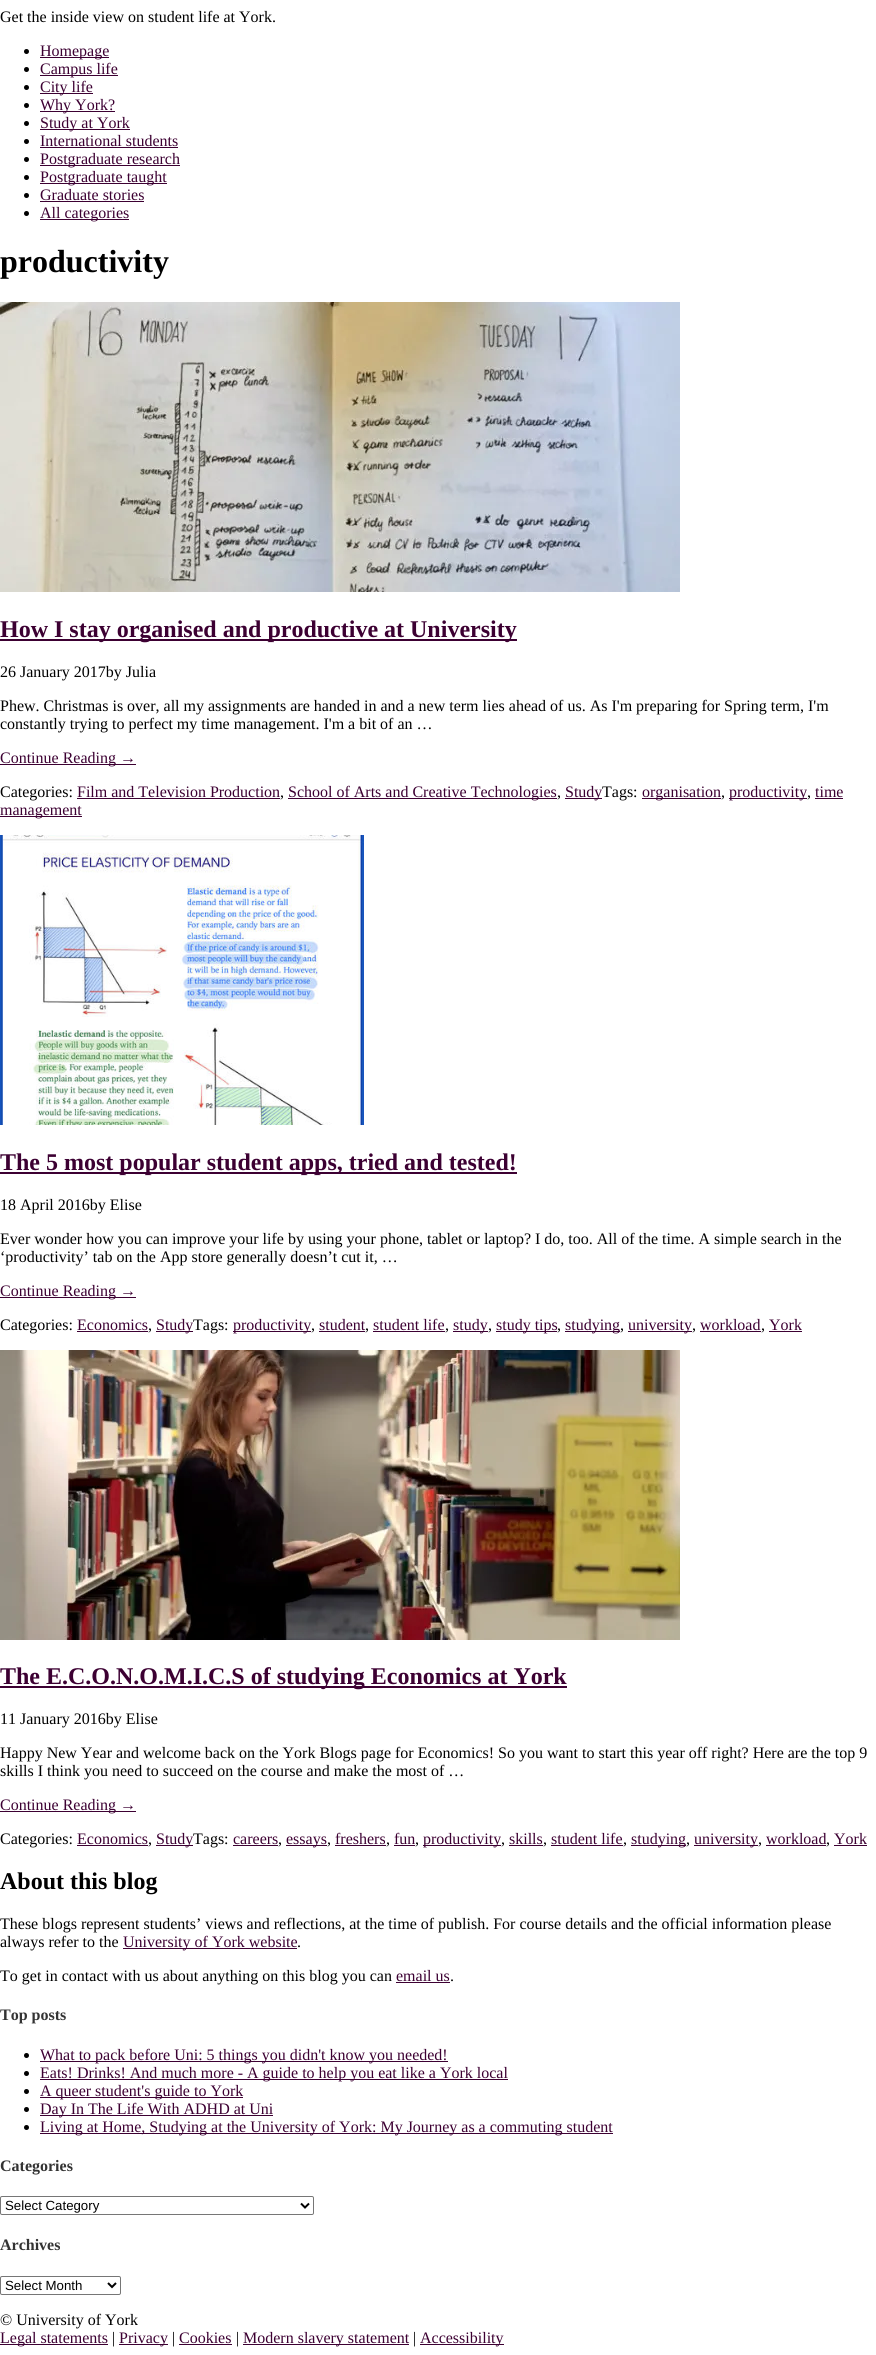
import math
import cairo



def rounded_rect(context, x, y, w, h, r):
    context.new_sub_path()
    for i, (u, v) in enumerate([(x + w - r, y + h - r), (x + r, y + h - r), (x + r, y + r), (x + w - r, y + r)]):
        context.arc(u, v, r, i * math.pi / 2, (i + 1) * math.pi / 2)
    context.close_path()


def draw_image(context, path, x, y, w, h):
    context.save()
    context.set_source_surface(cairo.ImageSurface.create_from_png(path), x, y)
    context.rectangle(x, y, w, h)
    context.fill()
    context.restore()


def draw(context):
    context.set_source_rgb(1, 1, 1)
    context.paint()
    context.set_source_rgb(0, 0, 0)
    context.arc(26.5, 51.5, 2.5, 0, 2 * math.pi)
    context.fill()
    context.set_source_rgb(60 / 255, 0, 50 / 255)
    context.rectangle(40, 57, 69, 1)
    context.fill()
    context.set_source_rgb(0, 0, 0)
    context.arc(26.5, 69.5, 2.5, 0, 2 * math.pi)
    context.fill()
    context.set_source_rgb(60 / 255, 0, 50 / 255)
    context.rectangle(40, 75, 78, 1)
    context.fill()
    context.set_source_rgb(0, 0, 0)
    context.arc(26.5, 87.5, 2.5, 0, 2 * math.pi)
    context.fill()
    context.set_source_rgb(60 / 255, 0, 50 / 255)
    context.rectangle(40, 93, 53, 1)
    context.fill()
    context.set_source_rgb(0, 0, 0)
    context.arc(26.5, 105.5, 2.5, 0, 2 * math.pi)
    context.fill()
    context.set_source_rgb(60 / 255, 0, 50 / 255)
    context.rectangle(40, 111, 75, 1)
    context.fill()
    context.set_source_rgb(0, 0, 0)
    context.arc(26.5, 123.5, 2.5, 0, 2 * math.pi)
    context.fill()
    context.set_source_rgb(60 / 255, 0, 50 / 255)
    context.rectangle(40, 129, 90, 1)
    context.fill()
    context.set_source_rgb(0, 0, 0)
    context.arc(26.5, 141.5, 2.5, 0, 2 * math.pi)
    context.fill()
    context.set_source_rgb(60 / 255, 0, 50 / 255)
    context.rectangle(40, 147, 138, 1)
    context.fill()
    context.set_source_rgb(0, 0, 0)
    context.arc(26.5, 159.5, 2.5, 0, 2 * math.pi)
    context.fill()
    context.set_source_rgb(60 / 255, 0, 50 / 255)
    context.rectangle(40, 165, 140, 1)
    context.fill()
    context.set_source_rgb(0, 0, 0)
    context.arc(26.5, 177.5, 2.5, 0, 2 * math.pi)
    context.fill()
    context.set_source_rgb(60 / 255, 0, 50 / 255)
    context.rectangle(40, 183, 127, 1)
    context.fill()
    context.set_source_rgb(0, 0, 0)
    context.arc(26.5, 195.5, 2.5, 0, 2 * math.pi)
    context.fill()
    context.set_source_rgb(60 / 255, 0, 50 / 255)
    context.rectangle(40, 201, 104, 1)
    context.fill()
    context.set_source_rgb(0, 0, 0)
    context.arc(26.5, 213.5, 2.5, 0, 2 * math.pi)
    context.fill()
    context.set_source_rgb(60 / 255, 0, 50 / 255)
    context.rectangle(40, 219, 89, 1)
    context.fill()
    draw_image(context, "images/1.png", 0, 302, 680, 290)
    context.rectangle(0, 639, 517, 2)
    context.fill()
    context.rectangle(0, 764, 136, 1)
    context.fill()
    context.rectangle(77, 798, 203, 1)
    context.fill()
    context.rectangle(288, 798, 269, 1)
    context.fill()
    context.rectangle(565, 798, 37, 1)
    context.fill()
    context.rectangle(642, 798, 79, 1)
    context.fill()
    context.rectangle(729, 798, 78, 1)
    context.fill()
    context.rectangle(815, 798, 28, 1)
    context.fill()
    context.rectangle(0, 816, 82, 1)
    context.fill()
    draw_image(context, "images/2.png", 0, 835, 364, 290)
    context.rectangle(0, 1172, 517, 2)
    context.fill()
    context.rectangle(0, 1297, 136, 1)
    context.fill()
    context.rectangle(77, 1331, 71, 1)
    context.fill()
    context.rectangle(156, 1331, 37, 1)
    context.fill()
    context.rectangle(233, 1331, 78, 1)
    context.fill()
    context.rectangle(319, 1331, 46, 1)
    context.fill()
    context.rectangle(373, 1331, 72, 1)
    context.fill()
    context.rectangle(453, 1331, 35, 1)
    context.fill()
    context.rectangle(496, 1331, 61, 1)
    context.fill()
    context.rectangle(565, 1331, 55, 1)
    context.fill()
    context.rectangle(628, 1331, 64, 1)
    context.fill()
    context.rectangle(700, 1331, 61, 1)
    context.fill()
    context.rectangle(769, 1331, 33, 1)
    context.fill()
    draw_image(context, "images/3.png", 0, 1350, 680, 290)
    context.rectangle(0, 1686, 567, 2)
    context.fill()
    context.rectangle(0, 1811, 136, 1)
    context.fill()
    context.rectangle(77, 1845, 71, 1)
    context.fill()
    context.rectangle(156, 1845, 37, 1)
    context.fill()
    context.rectangle(233, 1845, 45, 1)
    context.fill()
    context.rectangle(286, 1845, 41, 1)
    context.fill()
    context.rectangle(335, 1845, 51, 1)
    context.fill()
    context.rectangle(394, 1845, 21, 1)
    context.fill()
    context.rectangle(423, 1845, 78, 1)
    context.fill()
    context.rectangle(509, 1845, 34, 1)
    context.fill()
    context.rectangle(551, 1845, 72, 1)
    context.fill()
    context.rectangle(631, 1845, 55, 1)
    context.fill()
    context.rectangle(694, 1845, 64, 1)
    context.fill()
    context.rectangle(766, 1845, 60, 1)
    context.fill()
    context.rectangle(834, 1845, 33, 1)
    context.fill()
    context.rectangle(123, 1948, 174, 1)
    context.fill()
    context.rectangle(396, 1982, 54, 1)
    context.fill()
    context.set_source_rgb(0, 0, 0)
    context.arc(26.5, 2055.5, 2.5, 0, 2 * math.pi)
    context.fill()
    context.set_source_rgb(60 / 255, 0, 50 / 255)
    context.rectangle(40, 2061, 408, 1)
    context.fill()
    context.set_source_rgb(0, 0, 0)
    context.arc(26.5, 2073.5, 2.5, 0, 2 * math.pi)
    context.fill()
    context.set_source_rgb(60 / 255, 0, 50 / 255)
    context.rectangle(40, 2079, 468, 1)
    context.fill()
    context.set_source_rgb(0, 0, 0)
    context.arc(26.5, 2091.5, 2.5, 0, 2 * math.pi)
    context.fill()
    context.set_source_rgb(60 / 255, 0, 50 / 255)
    context.rectangle(40, 2097, 203, 1)
    context.fill()
    context.set_source_rgb(0, 0, 0)
    context.arc(26.5, 2109.5, 2.5, 0, 2 * math.pi)
    context.fill()
    context.set_source_rgb(60 / 255, 0, 50 / 255)
    context.rectangle(40, 2115, 233, 1)
    context.fill()
    context.set_source_rgb(0, 0, 0)
    context.arc(26.5, 2127.5, 2.5, 0, 2 * math.pi)
    context.fill()
    context.set_source_rgb(60 / 255, 0, 50 / 255)
    context.rectangle(40, 2133, 573, 1)
    context.fill()
    rounded_rect(context, 0.5, 2196.5, 313, 18, 1.5)
    context.set_source_rgb(118 / 255, 118 / 255, 118 / 255)
    context.set_line_width(1)
    context.stroke()
    context.new_path()
    context.move_to(301, 2203.5)
    context.line_to(305, 2207.5)
    context.line_to(309, 2203.5)
    context.set_source_rgb(0, 0, 0)
    context.set_line_width(2)
    context.stroke()
    rounded_rect(context, 0.5, 2276.5, 120, 18, 1.5)
    context.set_source_rgb(118 / 255, 118 / 255, 118 / 255)
    context.set_line_width(1)
    context.stroke()
    context.new_path()
    context.move_to(108, 2283)
    context.line_to(112, 2287)
    context.line_to(116, 2283)
    context.set_source_rgb(0, 0, 0)
    context.set_line_width(2)
    context.stroke()
    context.set_source_rgb(60 / 255, 0, 50 / 255)
    context.rectangle(0, 2344, 108, 1)
    context.fill()
    context.rectangle(119, 2344, 49, 1)
    context.fill()
    context.rectangle(179, 2344, 53, 1)
    context.fill()
    context.rectangle(243, 2344, 166, 1)
    context.fill()
    context.rectangle(420, 2344, 84, 1)
    context.fill()
    context.select_font_face("Liberation Serif")
    context.set_font_size(16)
    context.set_source_rgb(0, 0, 0)
    context.move_to(0, 22)
    context.show_text("Get the inside view on student life at York.")
    context.set_source_rgb(60 / 255, 0, 50 / 255)
    context.move_to(40, 56)
    context.show_text("Homepage")
    context.move_to(40, 74)
    context.show_text("Campus life")
    context.move_to(40, 92)
    context.show_text("City life")
    context.move_to(40, 110)
    context.show_text("Why York?")
    context.move_to(40, 128)
    context.show_text("Study at York")
    context.move_to(40, 146)
    context.show_text("International students")
    context.move_to(40, 164)
    context.show_text("Postgraduate research")
    context.move_to(40, 182)
    context.show_text("Postgraduate taught")
    context.move_to(40, 200)
    context.show_text("Graduate stories")
    context.move_to(40, 218)
    context.show_text("All categories")
    context.select_font_face("Liberation Serif", cairo.FontSlant.NORMAL, cairo.FontWeight.BOLD)
    context.set_font_size(32)
    context.set_source_rgb(0, 0, 0)
    context.move_to(0, 272)
    context.show_text("productivity")
    context.set_font_size(24)
    context.set_source_rgb(60 / 255, 0, 50 / 255)
    context.move_to(0, 637)
    context.show_text("How I stay organised and productive at University")
    context.select_font_face("Liberation Serif")
    context.set_font_size(16)
    context.set_source_rgb(0, 0, 0)
    context.move_to(0, 677)
    context.show_text("26 January 2017by Julia")
    context.move_to(0, 711)
    context.show_text("Phew. Christmas is over, all my assignments are handed in and a new term lies ahead of us. As I'm preparing for Spring term, I'm")
    context.move_to(0, 729)
    context.show_text("constantly trying to perfect my time management. I'm a bit of an …")
    context.set_source_rgb(60 / 255, 0, 50 / 255)
    context.move_to(0, 763)
    context.show_text("Continue Reading →")
    context.set_source_rgb(0, 0, 0)
    context.move_to(0, 797)
    context.show_text("Categories:")
    context.set_source_rgb(60 / 255, 0, 50 / 255)
    context.move_to(77, 797)
    context.show_text("Film and Television Production")
    context.set_source_rgb(0, 0, 0)
    context.move_to(280, 797)
    context.show_text(",")
    context.set_source_rgb(60 / 255, 0, 50 / 255)
    context.move_to(288, 797)
    context.show_text("School of Arts and Creative Technologies")
    context.set_source_rgb(0, 0, 0)
    context.move_to(557, 797)
    context.show_text(",")
    context.set_source_rgb(60 / 255, 0, 50 / 255)
    context.move_to(565, 797)
    context.show_text("Study")
    context.set_source_rgb(0, 0, 0)
    context.move_to(602, 797)
    context.show_text("Tags:")
    context.set_source_rgb(60 / 255, 0, 50 / 255)
    context.move_to(642, 797)
    context.show_text("organisation")
    context.set_source_rgb(0, 0, 0)
    context.move_to(721, 797)
    context.show_text(",")
    context.set_source_rgb(60 / 255, 0, 50 / 255)
    context.move_to(729, 797)
    context.show_text("productivity")
    context.set_source_rgb(0, 0, 0)
    context.move_to(807, 797)
    context.show_text(",")
    context.set_source_rgb(60 / 255, 0, 50 / 255)
    context.move_to(815, 797)
    context.show_text("time")
    context.move_to(0, 815)
    context.show_text("management")
    context.select_font_face("Liberation Serif", cairo.FontSlant.NORMAL, cairo.FontWeight.BOLD)
    context.set_font_size(24)
    context.move_to(0, 1170)
    context.show_text("The 5 most popular student apps, tried and tested!")
    context.select_font_face("Liberation Serif")
    context.set_font_size(16)
    context.set_source_rgb(0, 0, 0)
    context.move_to(0, 1210)
    context.show_text("18 April 2016by Elise")
    context.move_to(0, 1244)
    context.show_text("Ever wonder how you can improve your life by using your phone, tablet or laptop? I do, too. All of the time. A simple search in the")
    context.move_to(0, 1262)
    context.show_text("‘productivity’ tab on the App store generally doesn’t cut it, …")
    context.set_source_rgb(60 / 255, 0, 50 / 255)
    context.move_to(0, 1296)
    context.show_text("Continue Reading →")
    context.set_source_rgb(0, 0, 0)
    context.move_to(0, 1330)
    context.show_text("Categories:")
    context.set_source_rgb(60 / 255, 0, 50 / 255)
    context.move_to(77, 1330)
    context.show_text("Economics")
    context.set_source_rgb(0, 0, 0)
    context.move_to(148, 1330)
    context.show_text(",")
    context.set_source_rgb(60 / 255, 0, 50 / 255)
    context.move_to(156, 1330)
    context.show_text("Study")
    context.set_source_rgb(0, 0, 0)
    context.move_to(193, 1330)
    context.show_text("Tags:")
    context.set_source_rgb(60 / 255, 0, 50 / 255)
    context.move_to(233, 1330)
    context.show_text("productivity")
    context.set_source_rgb(0, 0, 0)
    context.move_to(311, 1330)
    context.show_text(",")
    context.set_source_rgb(60 / 255, 0, 50 / 255)
    context.move_to(319, 1330)
    context.show_text("student")
    context.set_source_rgb(0, 0, 0)
    context.move_to(365, 1330)
    context.show_text(",")
    context.set_source_rgb(60 / 255, 0, 50 / 255)
    context.move_to(373, 1330)
    context.show_text("student life")
    context.set_source_rgb(0, 0, 0)
    context.move_to(445, 1330)
    context.show_text(",")
    context.set_source_rgb(60 / 255, 0, 50 / 255)
    context.move_to(453, 1330)
    context.show_text("study")
    context.set_source_rgb(0, 0, 0)
    context.move_to(488, 1330)
    context.show_text(",")
    context.set_source_rgb(60 / 255, 0, 50 / 255)
    context.move_to(496, 1330)
    context.show_text("study tips")
    context.set_source_rgb(0, 0, 0)
    context.move_to(557, 1330)
    context.show_text(",")
    context.set_source_rgb(60 / 255, 0, 50 / 255)
    context.move_to(565, 1330)
    context.show_text("studying")
    context.set_source_rgb(0, 0, 0)
    context.move_to(620, 1330)
    context.show_text(",")
    context.set_source_rgb(60 / 255, 0, 50 / 255)
    context.move_to(628, 1330)
    context.show_text("university")
    context.set_source_rgb(0, 0, 0)
    context.move_to(692, 1330)
    context.show_text(",")
    context.set_source_rgb(60 / 255, 0, 50 / 255)
    context.move_to(700, 1330)
    context.show_text("workload")
    context.set_source_rgb(0, 0, 0)
    context.move_to(761, 1330)
    context.show_text(",")
    context.set_source_rgb(60 / 255, 0, 50 / 255)
    context.move_to(769, 1330)
    context.show_text("York")
    context.select_font_face("Liberation Serif", cairo.FontSlant.NORMAL, cairo.FontWeight.BOLD)
    context.set_font_size(24)
    context.move_to(0, 1684)
    context.show_text("The E.C.O.N.O.M.I.C.S of studying Economics at York")
    context.select_font_face("Liberation Serif")
    context.set_font_size(16)
    context.set_source_rgb(0, 0, 0)
    context.move_to(0, 1724)
    context.show_text("11 January 2016by Elise")
    context.move_to(0, 1758)
    context.show_text("Happy New Year and welcome back on the York Blogs page for Economics! So you want to start this year off right? Here are the top 9")
    context.move_to(0, 1776)
    context.show_text("skills I think you need to succeed on the course and make the most of …")
    context.set_source_rgb(60 / 255, 0, 50 / 255)
    context.move_to(0, 1810)
    context.show_text("Continue Reading →")
    context.set_source_rgb(0, 0, 0)
    context.move_to(0, 1844)
    context.show_text("Categories:")
    context.set_source_rgb(60 / 255, 0, 50 / 255)
    context.move_to(77, 1844)
    context.show_text("Economics")
    context.set_source_rgb(0, 0, 0)
    context.move_to(148, 1844)
    context.show_text(",")
    context.set_source_rgb(60 / 255, 0, 50 / 255)
    context.move_to(156, 1844)
    context.show_text("Study")
    context.set_source_rgb(0, 0, 0)
    context.move_to(193, 1844)
    context.show_text("Tags:")
    context.set_source_rgb(60 / 255, 0, 50 / 255)
    context.move_to(233, 1844)
    context.show_text("careers")
    context.set_source_rgb(0, 0, 0)
    context.move_to(278, 1844)
    context.show_text(",")
    context.set_source_rgb(60 / 255, 0, 50 / 255)
    context.move_to(286, 1844)
    context.show_text("essays")
    context.set_source_rgb(0, 0, 0)
    context.move_to(327, 1844)
    context.show_text(",")
    context.set_source_rgb(60 / 255, 0, 50 / 255)
    context.move_to(335, 1844)
    context.show_text("freshers")
    context.set_source_rgb(0, 0, 0)
    context.move_to(386, 1844)
    context.show_text(",")
    context.set_source_rgb(60 / 255, 0, 50 / 255)
    context.move_to(394, 1844)
    context.show_text("fun")
    context.set_source_rgb(0, 0, 0)
    context.move_to(415, 1844)
    context.show_text(",")
    context.set_source_rgb(60 / 255, 0, 50 / 255)
    context.move_to(423, 1844)
    context.show_text("productivity")
    context.set_source_rgb(0, 0, 0)
    context.move_to(501, 1844)
    context.show_text(",")
    context.set_source_rgb(60 / 255, 0, 50 / 255)
    context.move_to(509, 1844)
    context.show_text("skills")
    context.set_source_rgb(0, 0, 0)
    context.move_to(543, 1844)
    context.show_text(",")
    context.set_source_rgb(60 / 255, 0, 50 / 255)
    context.move_to(551, 1844)
    context.show_text("student life")
    context.set_source_rgb(0, 0, 0)
    context.move_to(623, 1844)
    context.show_text(",")
    context.set_source_rgb(60 / 255, 0, 50 / 255)
    context.move_to(631, 1844)
    context.show_text("studying")
    context.set_source_rgb(0, 0, 0)
    context.move_to(686, 1844)
    context.show_text(",")
    context.set_source_rgb(60 / 255, 0, 50 / 255)
    context.move_to(694, 1844)
    context.show_text("university")
    context.set_source_rgb(0, 0, 0)
    context.move_to(758, 1844)
    context.show_text(",")
    context.set_source_rgb(60 / 255, 0, 50 / 255)
    context.move_to(766, 1844)
    context.show_text("workload")
    context.set_source_rgb(0, 0, 0)
    context.move_to(826, 1844)
    context.show_text(",")
    context.set_source_rgb(60 / 255, 0, 50 / 255)
    context.move_to(834, 1844)
    context.show_text("York")
    context.select_font_face("Liberation Serif", cairo.FontSlant.NORMAL, cairo.FontWeight.BOLD)
    context.set_font_size(24)
    context.set_source_rgb(0, 0, 0)
    context.move_to(0, 1889)
    context.show_text("About this blog")
    context.select_font_face("Liberation Serif")
    context.set_font_size(16)
    context.move_to(0, 1929)
    context.show_text("These blogs represent students’ views and reflections, at the time of publish. For course details and the official information please")
    context.move_to(0, 1947)
    context.show_text("always refer to the")
    context.set_source_rgb(60 / 255, 0, 50 / 255)
    context.move_to(123, 1947)
    context.show_text("University of York website")
    context.set_source_rgb(0, 0, 0)
    context.move_to(297, 1947)
    context.show_text(".")
    context.move_to(0, 1981)
    context.show_text("To get in contact with us about anything on this blog you can")
    context.set_source_rgb(60 / 255, 0, 50 / 255)
    context.move_to(396, 1981)
    context.show_text("email us")
    context.set_source_rgb(0, 0, 0)
    context.move_to(450, 1981)
    context.show_text(".")
    context.select_font_face("Liberation Serif", cairo.FontSlant.NORMAL, cairo.FontWeight.BOLD)
    context.set_source_rgb(51 / 255, 51 / 255, 51 / 255)
    context.move_to(0, 2020)
    context.show_text("Top posts")
    context.select_font_face("Liberation Serif")
    context.set_source_rgb(60 / 255, 0, 50 / 255)
    context.move_to(40, 2060)
    context.show_text("What to pack before Uni: 5 things you didn't know you needed!")
    context.move_to(40, 2078)
    context.show_text("Eats! Drinks! And much more - A guide to help you eat like a York local")
    context.move_to(40, 2096)
    context.show_text("A queer student's guide to York")
    context.move_to(40, 2114)
    context.show_text("Day In The Life With ADHD at Uni")
    context.move_to(40, 2132)
    context.show_text("Living at Home, Studying at the University of York: My Journey as a commuting student")
    context.select_font_face("Liberation Serif", cairo.FontSlant.NORMAL, cairo.FontWeight.BOLD)
    context.set_source_rgb(51 / 255, 51 / 255, 51 / 255)
    context.move_to(0, 2171)
    context.show_text("Categories")
    context.select_font_face("Liberation Sans")
    context.set_font_size(13.25)
    context.set_source_rgb(0, 0, 0)
    context.move_to(5, 2210)
    context.show_text("Select Category")
    context.select_font_face("Liberation Serif", cairo.FontSlant.NORMAL, cairo.FontWeight.BOLD)
    context.set_font_size(16)
    context.set_source_rgb(51 / 255, 51 / 255, 51 / 255)
    context.move_to(0, 2250)
    context.show_text("Archives")
    context.select_font_face("Liberation Sans")
    context.set_font_size(13.25)
    context.set_source_rgb(0, 0, 0)
    context.move_to(5, 2290)
    context.show_text("Select Month")
    context.select_font_face("Liberation Serif")
    context.set_font_size(16)
    context.move_to(0, 2325)
    context.show_text("© University of York")
    context.set_source_rgb(60 / 255, 0, 50 / 255)
    context.move_to(0, 2343)
    context.show_text("Legal statements")
    context.set_source_rgb(0, 0, 0)
    context.move_to(112, 2343)
    context.show_text("|")
    context.set_source_rgb(60 / 255, 0, 50 / 255)
    context.move_to(119, 2343)
    context.show_text("Privacy")
    context.set_source_rgb(0, 0, 0)
    context.move_to(172, 2343)
    context.show_text("|")
    context.set_source_rgb(60 / 255, 0, 50 / 255)
    context.move_to(179, 2343)
    context.show_text("Cookies")
    context.set_source_rgb(0, 0, 0)
    context.move_to(236, 2343)
    context.show_text("|")
    context.set_source_rgb(60 / 255, 0, 50 / 255)
    context.move_to(243, 2343)
    context.show_text("Modern slavery statement")
    context.set_source_rgb(0, 0, 0)
    context.move_to(413, 2343)
    context.show_text("|")
    context.set_source_rgb(60 / 255, 0, 50 / 255)
    context.move_to(420, 2343)
    context.show_text("Accessibility")


surface = cairo.ImageSurface(cairo.Format.RGB24, 876, 2355)
context = cairo.Context(surface)
options = cairo.FontOptions()
options.set_hint_metrics(cairo.HintMetrics.OFF)
options.set_hint_style(cairo.HintStyle.NONE)
context.set_font_options(options)
context.set_miter_limit(4)
draw(context)
surface.write_to_png("out.png")
